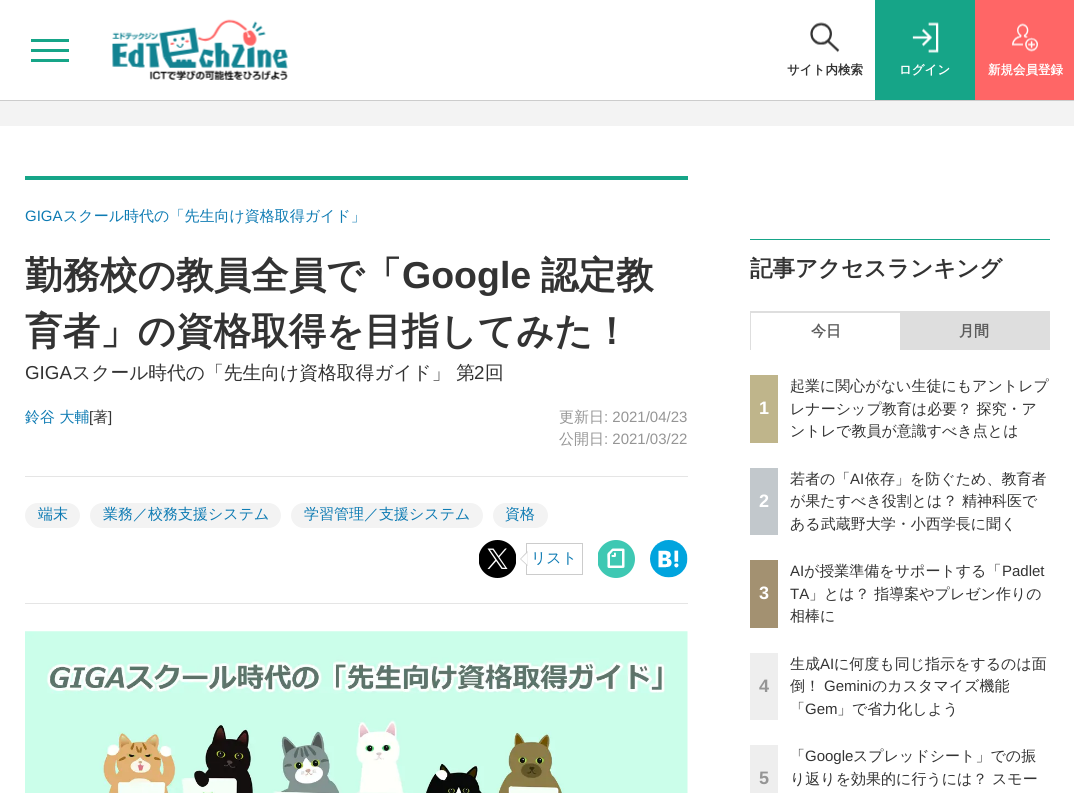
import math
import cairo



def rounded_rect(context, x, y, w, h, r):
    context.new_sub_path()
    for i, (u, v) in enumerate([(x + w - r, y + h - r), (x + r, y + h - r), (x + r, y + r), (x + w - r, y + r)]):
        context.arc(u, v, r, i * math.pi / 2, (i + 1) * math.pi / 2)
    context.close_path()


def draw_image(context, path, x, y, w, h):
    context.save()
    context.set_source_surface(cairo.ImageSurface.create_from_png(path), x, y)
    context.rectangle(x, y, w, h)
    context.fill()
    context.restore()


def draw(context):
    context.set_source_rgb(1, 1, 1)
    context.paint()
    context.set_source_rgb(204 / 255, 204 / 255, 204 / 255)
    context.rectangle(0, 100, 1074, 1)
    context.fill()
    context.set_source_rgb(22 / 255, 165 / 255, 136 / 255)
    context.rectangle(31, 49, 38, 3)
    context.fill()
    context.rectangle(31, 39, 38, 3)
    context.fill()
    context.rectangle(31, 59, 38, 3)
    context.fill()
    draw_image(context, "images/1.png", 112, 19, 176, 61)
    draw_image(context, "images/2.png", 810, 22, 30, 31)
    context.rectangle(875, 0, 100, 100)
    context.fill()
    draw_image(context, "images/3.png", 912, 22, 27, 31)
    context.set_source_rgb(1, 102 / 255, 102 / 255)
    context.rectangle(975, 0, 99, 100)
    context.fill()
    draw_image(context, "images/4.png", 1012, 23, 26, 29)
    context.set_source_rgb(243 / 255, 243 / 255, 243 / 255)
    context.rectangle(0, 101, 1074, 25)
    context.fill()
    context.set_source_rgb(22 / 255, 165 / 255, 136 / 255)
    context.rectangle(25, 176, 663, 4)
    context.fill()
    context.set_source_rgb(229 / 255, 229 / 255, 229 / 255)
    context.rectangle(25, 603, 663, 1)
    context.fill()
    context.rectangle(25, 476, 663, 1)
    context.fill()
    context.set_source_rgb(243 / 255, 243 / 255, 243 / 255)
    rounded_rect(context, 25, 503, 55, 25, 12.5)
    context.fill()
    rounded_rect(context, 90, 503, 191, 25, 12.5)
    context.fill()
    rounded_rect(context, 291, 503, 192, 25, 12.5)
    context.fill()
    rounded_rect(context, 493, 503, 55, 25, 12.5)
    context.fill()
    draw_image(context, "images/5.png", 479, 540, 37, 38)
    context.rectangle(526.5, 543.5, 56, 31)
    context.set_source_rgb(204 / 255, 204 / 255, 204 / 255)
    context.set_line_width(1)
    context.stroke()
    context.new_path()
    context.move_to(527.5, 551)
    context.line_to(527.5, 566)
    context.line_to(520, 559)
    context.close_path()
    context.fill()
    context.set_source_rgb(1, 1, 1)
    context.new_path()
    context.move_to(527.5, 552.5)
    context.line_to(527.5, 565)
    context.line_to(521, 559)
    context.close_path()
    context.fill()
    context.save()
    context.rectangle(598, 540, 37, 38)
    context.clip()
    context.set_source_rgb(62 / 255, 200 / 255, 179 / 255)
    context.arc(616, 559, 19, 0, 2 * math.pi)
    context.fill()
    context.restore()
    context.set_fill_rule(cairo.FillRule.EVEN_ODD)
    context.new_path()
    context.move_to(609, 568)
    context.line_to(620.5, 568)
    context.curve_to(625, 568, 624.5, 568, 624.5, 564)
    context.line_to(624.5, 552.5)
    context.curve_to(624.5, 549, 625, 548.5, 621.5, 548.5)
    context.line_to(613, 548.5)
    context.curve_to(612, 548.5, 611.5, 549.5, 610.5, 550.5)
    context.curve_to(606, 554.5, 607.5, 553.5, 607.5, 560.5)
    context.line_to(607.5, 564.5)
    context.curve_to(607.5, 565.5, 607, 568, 609, 568)
    context.close_path()
    context.move_to(613, 551)
    context.line_to(622, 551)
    context.line_to(622, 565.5)
    context.line_to(610, 565.5)
    context.line_to(610, 554.5)
    context.close_path()
    context.move_to(612.5, 557)
    context.curve_to(615, 557, 616, 557.5, 616, 555)
    context.curve_to(616, 554, 616, 552.5, 615, 552.5)
    context.line_to(614, 553)
    context.line_to(614, 555)
    context.line_to(612, 555)
    context.curve_to(611, 555.5, 611.5, 557, 612.5, 557)
    context.close_path()
    context.fill()
    draw_image(context, "images/6.png", 650, 540, 38, 38)
    draw_image(context, "images/7.png", 25, 631, 663, 162)
    context.set_source_rgb(22 / 255, 165 / 255, 136 / 255)
    context.rectangle(750, 239, 300, 1)
    context.fill()
    context.set_source_rgb(222 / 255, 222 / 255, 222 / 255)
    context.rectangle(750, 311, 300, 39)
    context.fill()
    context.set_source_rgb(1, 1, 1)
    context.rectangle(751, 313, 149, 37)
    context.fill()
    context.set_source_rgb(191 / 255, 181 / 255, 139 / 255)
    context.rectangle(750, 375, 28, 68)
    context.fill()
    context.set_source_rgb(194 / 255, 200 / 255, 204 / 255)
    context.rectangle(750, 468, 28, 67)
    context.fill()
    context.set_source_rgb(163 / 255, 145 / 255, 113 / 255)
    context.rectangle(750, 560, 28, 68)
    context.fill()
    context.set_source_rgb(238 / 255, 238 / 255, 238 / 255)
    context.rectangle(750, 653, 28, 67)
    context.fill()
    context.rectangle(750, 745, 28, 48)
    context.fill()
    context.select_font_face("WenQuanYi Zen Hei", cairo.FontSlant.NORMAL, cairo.FontWeight.BOLD)
    context.set_font_size(12.5)
    context.set_source_rgb(51 / 255, 51 / 255, 51 / 255)
    context.move_to(787, 74)
    context.show_text("サイト内検索")
    context.set_source_rgb(1, 1, 1)
    context.move_to(899, 74)
    context.show_text("ログイン")
    context.move_to(988, 74)
    context.show_text("新規会員登録")
    context.select_font_face("Liberation Sans")
    context.set_font_size(15)
    context.set_source_rgb(14 / 255, 123 / 255, 179 / 255)
    context.move_to(25, 221)
    context.show_text("GIGA")
    context.select_font_face("WenQuanYi Zen Hei Medium")
    context.move_to(63, 221)
    context.show_text("スクール時代の「先生向け資格取得ガイド」")
    context.select_font_face("WenQuanYi Zen Hei", cairo.FontSlant.NORMAL, cairo.FontWeight.BOLD)
    context.set_font_size(37.5)
    context.set_source_rgb(51 / 255, 51 / 255, 51 / 255)
    context.move_to(25, 288)
    context.show_text("勤務校の教員全員で「")
    context.select_font_face("Liberation Sans", cairo.FontSlant.NORMAL, cairo.FontWeight.BOLD)
    context.move_to(402, 288)
    context.show_text("Google")
    context.select_font_face("WenQuanYi Zen Hei", cairo.FontSlant.NORMAL, cairo.FontWeight.BOLD)
    context.move_to(541, 288)
    context.show_text("認定教")
    context.move_to(25, 344)
    context.show_text("育者」の資格取得を目指してみた！")
    context.select_font_face("Liberation Sans")
    context.set_font_size(18.75)
    context.move_to(25, 379)
    context.show_text("GIGA")
    context.select_font_face("WenQuanYi Zen Hei Medium")
    context.move_to(72, 379)
    context.show_text("スクール時代の「先生向け資格取得ガイド」 第")
    context.select_font_face("Liberation Sans")
    context.move_to(474, 379)
    context.show_text("2")
    context.select_font_face("WenQuanYi Zen Hei Medium")
    context.move_to(485, 379)
    context.show_text("回")
    context.set_font_size(15)
    context.set_source_rgb(14 / 255, 123 / 255, 179 / 255)
    context.move_to(25, 422)
    context.show_text("鈴谷 大輔")
    context.select_font_face("Liberation Sans")
    context.set_source_rgb(51 / 255, 51 / 255, 51 / 255)
    context.move_to(89, 422)
    context.show_text("[")
    context.select_font_face("WenQuanYi Zen Hei Medium")
    context.move_to(93, 422)
    context.show_text("著")
    context.select_font_face("Liberation Sans")
    context.move_to(108, 422)
    context.show_text("]")
    context.select_font_face("WenQuanYi Zen Hei Medium")
    context.set_source_rgb(149 / 255, 149 / 255, 149 / 255)
    context.move_to(559, 422)
    context.show_text("更新日")
    context.select_font_face("Liberation Sans")
    context.move_to(604, 422)
    context.show_text(": 2021/04/23")
    context.select_font_face("WenQuanYi Zen Hei Medium")
    context.move_to(559, 444)
    context.show_text("公開日")
    context.select_font_face("Liberation Sans")
    context.move_to(604, 444)
    context.show_text(": 2021/03/22")
    context.select_font_face("WenQuanYi Zen Hei Medium")
    context.set_source_rgb(14 / 255, 123 / 255, 179 / 255)
    context.move_to(38, 519)
    context.show_text("端末")
    context.move_to(103, 519)
    context.show_text("業務／校務支援システム")
    context.move_to(304, 519)
    context.show_text("学習管理／支援システム")
    context.move_to(505, 519)
    context.show_text("資格")
    context.move_to(531, 563)
    context.show_text("リスト")
    context.select_font_face("WenQuanYi Zen Hei", cairo.FontSlant.NORMAL, cairo.FontWeight.BOLD)
    context.set_font_size(22.5)
    context.set_source_rgb(51 / 255, 51 / 255, 51 / 255)
    context.move_to(750, 276)
    context.show_text("記事アクセスランキング")
    context.set_font_size(15)
    context.set_source_rgb(93 / 255, 93 / 255, 93 / 255)
    context.move_to(811, 336)
    context.show_text("今日")
    context.move_to(959, 336)
    context.show_text("月間")
    context.select_font_face("Liberation Sans", cairo.FontSlant.NORMAL, cairo.FontWeight.BOLD)
    context.set_font_size(18)
    context.set_source_rgb(1, 1, 1)
    context.move_to(759, 414)
    context.show_text("1")
    context.select_font_face("WenQuanYi Zen Hei Medium")
    context.set_font_size(15)
    context.set_source_rgb(51 / 255, 51 / 255, 51 / 255)
    context.move_to(790, 391)
    context.show_text("起業に関心がない生徒にもアントレプ")
    context.move_to(790, 414)
    context.show_text("レナーシップ教育は必要？ 探究・ア")
    context.move_to(790, 436)
    context.show_text("ントレで教員が意識すべき点とは")
    context.select_font_face("Liberation Sans", cairo.FontSlant.NORMAL, cairo.FontWeight.BOLD)
    context.set_font_size(18)
    context.set_source_rgb(1, 1, 1)
    context.move_to(759, 507)
    context.show_text("2")
    context.select_font_face("WenQuanYi Zen Hei Medium")
    context.set_font_size(15)
    context.set_source_rgb(51 / 255, 51 / 255, 51 / 255)
    context.move_to(790, 484)
    context.show_text("若者の「")
    context.select_font_face("Liberation Sans")
    context.move_to(850, 484)
    context.show_text("AI")
    context.select_font_face("WenQuanYi Zen Hei Medium")
    context.move_to(865, 484)
    context.show_text("依存」を防ぐため、教育者")
    context.move_to(790, 506)
    context.show_text("が果たすべき役割とは？ 精神科医で")
    context.move_to(790, 529)
    context.show_text("ある武蔵野大学・小西学長に聞く")
    context.select_font_face("Liberation Sans", cairo.FontSlant.NORMAL, cairo.FontWeight.BOLD)
    context.set_font_size(18)
    context.set_source_rgb(1, 1, 1)
    context.move_to(759, 599)
    context.show_text("3")
    context.select_font_face("Liberation Sans")
    context.set_font_size(15)
    context.set_source_rgb(51 / 255, 51 / 255, 51 / 255)
    context.move_to(790, 576)
    context.show_text("AI")
    context.select_font_face("WenQuanYi Zen Hei Medium")
    context.move_to(804, 576)
    context.show_text("が授業準備をサポートする「")
    context.select_font_face("Liberation Sans")
    context.move_to(1002, 576)
    context.show_text("Padlet")
    context.move_to(790, 599)
    context.show_text("TA")
    context.select_font_face("WenQuanYi Zen Hei Medium")
    context.move_to(809, 599)
    context.show_text("」とは？ 指導案やプレゼン作りの")
    context.move_to(790, 621)
    context.show_text("相棒に")
    context.select_font_face("Liberation Sans", cairo.FontSlant.NORMAL, cairo.FontWeight.BOLD)
    context.set_font_size(18)
    context.set_source_rgb(149 / 255, 149 / 255, 149 / 255)
    context.move_to(759, 692)
    context.show_text("4")
    context.select_font_face("WenQuanYi Zen Hei Medium")
    context.set_font_size(15)
    context.set_source_rgb(51 / 255, 51 / 255, 51 / 255)
    context.move_to(790, 669)
    context.show_text("生成")
    context.select_font_face("Liberation Sans")
    context.move_to(820, 669)
    context.show_text("AI")
    context.select_font_face("WenQuanYi Zen Hei Medium")
    context.move_to(834, 669)
    context.show_text("に何度も同じ指示をするのは面")
    context.move_to(790, 691)
    context.show_text("倒！")
    context.select_font_face("Liberation Sans")
    context.move_to(824, 691)
    context.show_text("Gemini")
    context.select_font_face("WenQuanYi Zen Hei Medium")
    context.move_to(872, 691)
    context.show_text("のカスタマイズ機能")
    context.move_to(790, 714)
    context.show_text("「")
    context.select_font_face("Liberation Sans")
    context.move_to(805, 714)
    context.show_text("Gem")
    context.select_font_face("WenQuanYi Zen Hei Medium")
    context.move_to(837, 714)
    context.show_text("」で省力化しよう")
    context.select_font_face("Liberation Sans", cairo.FontSlant.NORMAL, cairo.FontWeight.BOLD)
    context.set_font_size(18)
    context.set_source_rgb(149 / 255, 149 / 255, 149 / 255)
    context.move_to(759, 784)
    context.show_text("5")
    context.select_font_face("WenQuanYi Zen Hei Medium")
    context.set_font_size(15)
    context.set_source_rgb(51 / 255, 51 / 255, 51 / 255)
    context.move_to(790, 761)
    context.show_text("「")
    context.select_font_face("Liberation Sans")
    context.move_to(805, 761)
    context.show_text("Google")
    context.select_font_face("WenQuanYi Zen Hei Medium")
    context.move_to(853, 761)
    context.show_text("スプレッドシート」での振")
    context.move_to(790, 784)
    context.show_text("り返りを効果的に行うには？ スモー")


surface = cairo.ImageSurface(cairo.Format.RGB24, 1074, 793)
context = cairo.Context(surface)
options = cairo.FontOptions()
options.set_hint_metrics(cairo.HintMetrics.OFF)
options.set_hint_style(cairo.HintStyle.NONE)
context.set_font_options(options)
context.set_miter_limit(4)
draw(context)
surface.write_to_png("out.png")
